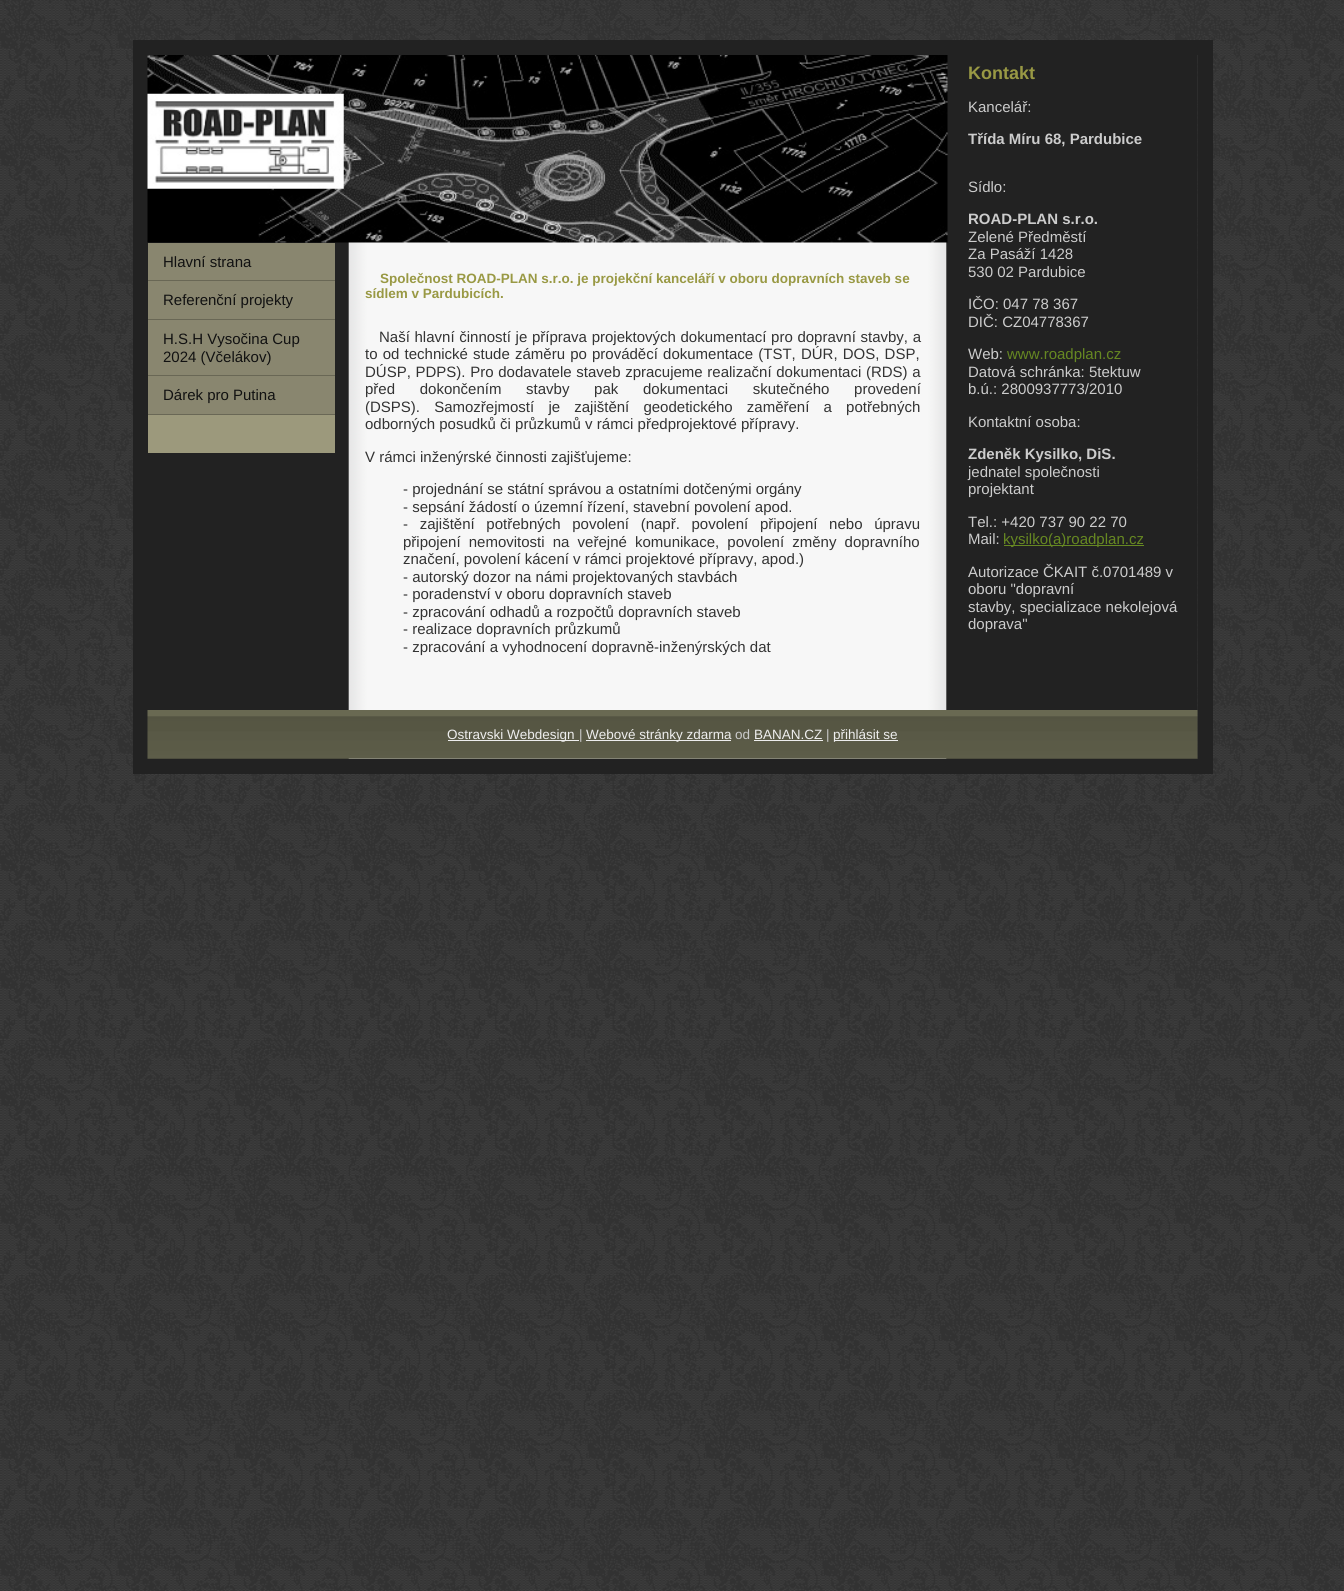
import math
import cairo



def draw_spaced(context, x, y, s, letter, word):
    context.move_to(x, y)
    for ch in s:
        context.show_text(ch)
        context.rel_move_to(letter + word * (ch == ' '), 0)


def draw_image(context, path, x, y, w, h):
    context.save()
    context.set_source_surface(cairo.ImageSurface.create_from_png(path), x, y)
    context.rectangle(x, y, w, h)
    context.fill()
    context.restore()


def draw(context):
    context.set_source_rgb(1, 1, 1)
    context.paint()
    draw_image(context, "images/1.png", 0, 0, 1344, 1591)
    draw_image(context, "images/2.png", 148, 55, 1050, 704)
    context.rectangle(140.5, 47.5, 1065, 719)
    context.set_source_rgb(34 / 255, 34 / 255, 34 / 255)
    context.set_line_width(15)
    context.stroke()
    draw_image(context, "images/3.png", 147, 55, 801, 188)
    context.set_source_rgb(102 / 255, 136 / 255, 34 / 255)
    context.rectangle(1004, 545, 140, 1)
    context.fill()
    context.set_source_rgb(156 / 255, 153 / 255, 124 / 255)
    context.rectangle(148, 415, 187, 38)
    context.fill()
    context.set_source_rgb(105 / 255, 103 / 255, 85 / 255)
    context.rectangle(148, 280, 187, 1)
    context.fill()
    context.set_source_rgb(137 / 255, 134 / 255, 111 / 255)
    context.rectangle(148, 243, 187, 37)
    context.fill()
    context.set_source_rgb(105 / 255, 103 / 255, 85 / 255)
    context.rectangle(148, 319, 187, 1)
    context.fill()
    context.set_source_rgb(137 / 255, 134 / 255, 111 / 255)
    context.rectangle(148, 281, 187, 38)
    context.fill()
    context.set_source_rgb(105 / 255, 103 / 255, 85 / 255)
    context.rectangle(148, 375, 187, 1)
    context.fill()
    context.set_source_rgb(137 / 255, 134 / 255, 111 / 255)
    context.rectangle(148, 320, 187, 55)
    context.fill()
    context.set_source_rgb(105 / 255, 103 / 255, 85 / 255)
    context.rectangle(148, 414, 187, 1)
    context.fill()
    context.set_source_rgb(137 / 255, 134 / 255, 111 / 255)
    context.rectangle(148, 376, 187, 38)
    context.fill()
    draw_image(context, "images/4.png", 147, 710, 1051, 49)
    context.set_source_rgb(238 / 255, 238 / 255, 238 / 255)
    context.rectangle(448, 740, 131, 1)
    context.fill()
    context.rectangle(586, 740, 145, 1)
    context.fill()
    context.rectangle(754, 740, 69, 1)
    context.fill()
    context.rectangle(834, 740, 64, 1)
    context.fill()
    context.select_font_face("Liberation Sans", cairo.FontSlant.NORMAL, cairo.FontWeight.BOLD)
    context.set_font_size(18)
    context.set_source_rgb(153 / 255, 153 / 255, 68 / 255)
    context.move_to(968, 79)
    context.show_text("Kontakt")
    context.select_font_face("Liberation Sans")
    context.set_font_size(15)
    context.set_source_rgb(204 / 255, 204 / 255, 204 / 255)
    context.move_to(968, 112)
    context.show_text("Kancelář:")
    context.select_font_face("Liberation Sans", cairo.FontSlant.NORMAL, cairo.FontWeight.BOLD)
    context.move_to(968, 144)
    context.show_text("Třída Míru 68, Pardubice")
    context.select_font_face("Liberation Sans")
    context.move_to(968, 192)
    context.show_text("Sídlo:")
    context.select_font_face("Liberation Sans", cairo.FontSlant.NORMAL, cairo.FontWeight.BOLD)
    context.move_to(968, 224)
    context.show_text("ROAD-PLAN s.r.o.")
    context.select_font_face("Liberation Sans")
    context.move_to(968, 242)
    context.show_text("Zelené Předměstí")
    context.move_to(968, 259)
    context.show_text("Za Pasáží 1428")
    context.move_to(968, 277)
    context.show_text("530 02 Pardubice")
    context.move_to(968, 309)
    context.show_text("IČO: 047 78 367")
    context.move_to(968, 327)
    context.show_text("DIČ: CZ04778367")
    context.move_to(968, 359)
    context.show_text("Web:")
    context.set_source_rgb(102 / 255, 136 / 255, 34 / 255)
    context.move_to(1007, 359)
    context.show_text("www.roadplan.cz")
    context.set_source_rgb(204 / 255, 204 / 255, 204 / 255)
    context.move_to(968, 377)
    context.show_text("Datová schránka: 5tektuw")
    context.move_to(968, 394)
    context.show_text("b.ú.: 2800937773/2010")
    context.move_to(968, 427)
    context.show_text("Kontaktní osoba:")
    context.select_font_face("Liberation Sans", cairo.FontSlant.NORMAL, cairo.FontWeight.BOLD)
    context.move_to(968, 459)
    context.show_text("Zdeněk Kysilko, DiS.")
    context.select_font_face("Liberation Sans")
    context.move_to(968, 477)
    context.show_text("jednatel společnosti")
    context.move_to(968, 494)
    context.show_text("projektant")
    context.move_to(968, 527)
    context.show_text("Tel.: +420 737 90 22 70")
    context.move_to(968, 544)
    context.show_text("Mail:")
    context.set_source_rgb(102 / 255, 136 / 255, 34 / 255)
    context.move_to(1003, 544)
    context.show_text("kysilko(a)roadplan.cz")
    context.set_source_rgb(204 / 255, 204 / 255, 204 / 255)
    context.move_to(968, 577)
    context.show_text("Autorizace ČKAIT č.0701489 v")
    context.move_to(968, 594)
    context.show_text("oboru \"dopravní")
    context.move_to(968, 612)
    context.show_text("stavby, specializace nekolejová")
    context.move_to(968, 629)
    context.show_text("doprava\"")
    context.set_source_rgb(17 / 255, 17 / 255, 17 / 255)
    context.move_to(163, 267)
    context.show_text("Hlavní strana")
    context.move_to(163, 305)
    context.show_text("Referenční projekty")
    context.move_to(163, 344)
    context.show_text("H.S.H Vysočina Cup")
    context.move_to(163, 362)
    context.show_text("2024 (Včelákov)")
    context.move_to(163, 400)
    context.show_text("Dárek pro Putina")
    context.select_font_face("Liberation Sans", cairo.FontSlant.NORMAL, cairo.FontWeight.BOLD)
    context.set_font_size(13.5)
    context.set_source_rgb(153 / 255, 153 / 255, 68 / 255)
    context.move_to(380, 283)
    context.show_text("Společnost ROAD-PLAN s.r.o. je projekční kanceláří v oboru dopravních staveb se")
    context.move_to(365, 298)
    context.show_text("sídlem v Pardubicích.")
    context.select_font_face("Liberation Sans")
    context.set_font_size(15)
    context.set_source_rgb(51 / 255, 51 / 255, 51 / 255)
    draw_spaced(context, 379, 342, "Naší hlavní činností je příprava projektových dokumentací pro dopravní stavby, a", 0, 0.5)
    draw_spaced(context, 365, 359, "to od technické stude záměru po prováděcí dokumentace (TST, DÚR, DOS, DSP,", 0, 1)
    draw_spaced(context, 365, 377, "DÚSP, PDPS). Pro dodavatele staveb zpracujeme realizační dokumentaci (RDS) a", 0, 0.5)
    draw_spaced(context, 365, 394, "před dokončením stavby pak dokumentaci skutečného provedení", 0, 20.5)
    draw_spaced(context, 365, 412, "(DSPS). Samozřejmostí je zajištění geodetického zaměření a potřebných", 0, 10)
    context.move_to(365, 429)
    context.show_text("odborných posudků či průzkumů v rámci předprojektové přípravy.")
    context.move_to(365, 462)
    context.show_text("V rámci inženýrské činnosti zajišťujeme:")
    context.move_to(403, 494)
    context.show_text("- projednání se státní správou a ostatními dotčenými orgány")
    context.move_to(403, 512)
    context.show_text("- sepsání žádostí o územní řízení, stavební povolení apod.")
    draw_spaced(context, 403, 529, "- zajištění potřebných povolení (např. povolení připojení nebo úpravu", 0, 7.5)
    draw_spaced(context, 403, 547, "připojení nemovitosti na veřejné komunikace, povolení změny dopravního", 0, 4)
    context.move_to(403, 564)
    context.show_text("značení, povolení kácení v rámci projektové přípravy, apod.)")
    context.move_to(403, 582)
    context.show_text("- autorský dozor na námi projektovaných stavbách")
    context.move_to(403, 599)
    context.show_text("- poradenství v oboru dopravních staveb")
    context.move_to(403, 617)
    context.show_text("- zpracování odhadů a rozpočtů dopravních staveb")
    context.move_to(403, 634)
    context.show_text("- realizace dopravních průzkumů")
    context.move_to(403, 652)
    context.show_text("- zpracování a vyhodnocení dopravně-inženýrských dat")
    context.set_font_size(13.5)
    context.set_source_rgb(238 / 255, 238 / 255, 238 / 255)
    context.move_to(447, 739)
    context.show_text("Ostravski Webdesign")
    context.set_source_rgb(204 / 255, 204 / 255, 204 / 255)
    context.move_to(579, 739)
    context.show_text("|")
    context.set_source_rgb(238 / 255, 238 / 255, 238 / 255)
    context.move_to(586, 739)
    context.show_text("Webové stránky zdarma")
    context.set_source_rgb(204 / 255, 204 / 255, 204 / 255)
    context.move_to(735, 739)
    context.show_text("od")
    context.set_source_rgb(238 / 255, 238 / 255, 238 / 255)
    context.move_to(754, 739)
    context.show_text("BANAN.CZ")
    context.set_source_rgb(204 / 255, 204 / 255, 204 / 255)
    context.move_to(826, 739)
    context.show_text("|")
    context.set_source_rgb(238 / 255, 238 / 255, 238 / 255)
    context.move_to(833, 739)
    context.show_text("přihlásit se")


surface = cairo.ImageSurface(cairo.Format.RGB24, 1344, 1591)
context = cairo.Context(surface)
options = cairo.FontOptions()
options.set_hint_metrics(cairo.HintMetrics.OFF)
options.set_hint_style(cairo.HintStyle.NONE)
context.set_font_options(options)
context.set_miter_limit(4)
draw(context)
surface.write_to_png("out.png")
